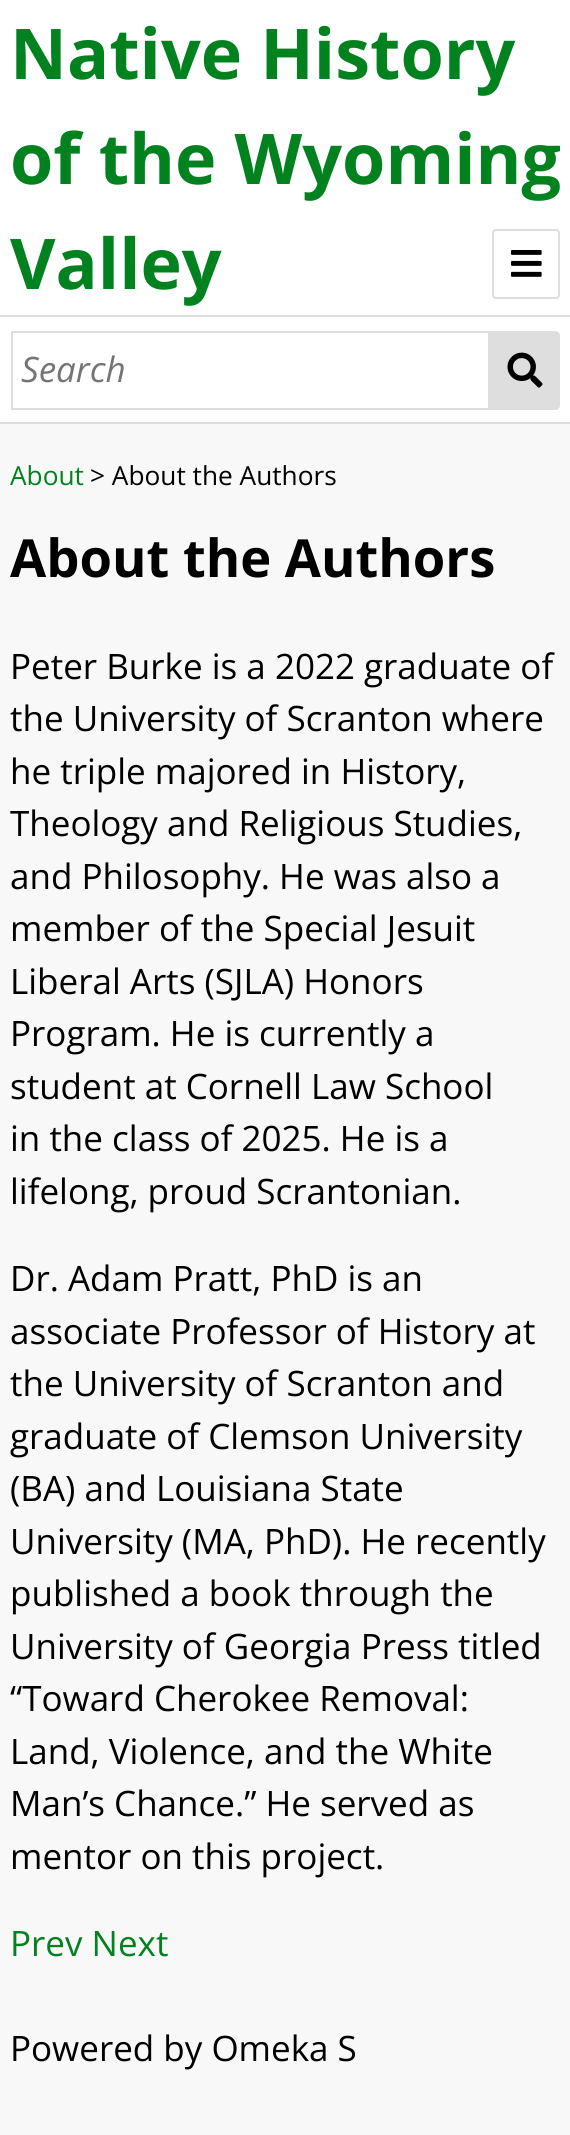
import math
import cairo



def rounded_rect(context, x, y, w, h, r):
    context.new_sub_path()
    for i, (u, v) in enumerate([(x + w - r, y + h - r), (x + r, y + h - r), (x + r, y + r), (x + w - r, y + r)]):
        context.arc(u, v, r, i * math.pi / 2, (i + 1) * math.pi / 2)
    context.close_path()


def draw_image(context, path, x, y, w, h):
    context.save()
    context.set_source_surface(cairo.ImageSurface.create_from_png(path), x, y)
    context.rectangle(x, y, w, h)
    context.fill()
    context.restore()


def draw(context):
    context.set_source_rgb(248 / 255, 248 / 255, 248 / 255)
    context.paint()
    context.set_source_rgb(1, 1, 1)
    context.rectangle(0, 0, 570, 315)
    context.fill()
    rounded_rect(context, 493, 230, 66, 68, 3)
    context.set_source_rgb(222 / 255, 222 / 255, 222 / 255)
    context.stroke()
    draw_image(context, "images/1.png", 511, 250, 31, 27)
    context.set_source_rgb(1, 1, 1)
    context.rectangle(0, 317, 570, 105)
    context.fill()
    context.set_source_rgb(222 / 255, 222 / 255, 222 / 255)
    context.rectangle(0, 315, 570, 2)
    context.fill()
    context.rectangle(0, 422, 570, 2)
    context.fill()
    context.rectangle(12, 332, 477, 77)
    context.stroke()
    context.new_path()
    context.move_to(490, 331)
    context.line_to(555, 331)
    context.curve_to(558, 331, 560, 333, 560, 336)
    context.line_to(560, 405)
    context.curve_to(560, 408, 558, 410, 555, 410)
    context.line_to(490, 410)
    context.close_path()
    context.fill()
    draw_image(context, "images/2.png", 507, 352, 36, 36)
    context.select_font_face("Open Sans", cairo.FontSlant.NORMAL, cairo.FontWeight.BOLD)
    context.set_font_size(70)
    context.set_source_rgb(1 / 255, 130 / 255, 31 / 255)
    context.move_to(10, 79)
    context.show_text("Native History")
    context.move_to(10, 184)
    context.show_text("of the Wyoming")
    context.move_to(10, 289)
    context.show_text("Valley")
    context.select_font_face("Open Sans", cairo.FontSlant.ITALIC)
    context.set_font_size(35)
    context.set_source_rgb(117 / 255, 117 / 255, 117 / 255)
    context.move_to(21, 382)
    context.show_text("Search")
    context.select_font_face("Open Sans")
    context.set_font_size(26.25)
    context.set_source_rgb(1 / 255, 130 / 255, 31 / 255)
    context.move_to(10, 485)
    context.show_text("About")
    context.set_source_rgb(0, 0, 0)
    context.move_to(90, 485)
    context.show_text("> About the Authors")
    context.select_font_face("Open Sans", cairo.FontSlant.NORMAL, cairo.FontWeight.BOLD)
    context.set_font_size(52.5)
    context.move_to(10, 577)
    context.show_text("About the Authors")
    context.select_font_face("Open Sans")
    context.set_font_size(35)
    context.move_to(10, 679)
    context.show_text("Peter Burke is a 2022 graduate of")
    context.move_to(10, 731)
    context.show_text("the University of Scranton where")
    context.move_to(10, 784)
    context.show_text("he triple majored in History,")
    context.move_to(10, 836)
    context.show_text("Theology and Religious Studies,")
    context.move_to(10, 889)
    context.show_text("and Philosophy. He was also a")
    context.move_to(10, 941)
    context.show_text("member of the Special Jesuit")
    context.move_to(10, 994)
    context.show_text("Liberal Arts (SJLA) Honors")
    context.move_to(10, 1046)
    context.show_text("Program. He is currently a")
    context.move_to(10, 1099)
    context.show_text("student at Cornell Law School")
    context.move_to(10, 1151)
    context.show_text("in the class of 2025. He is a")
    context.move_to(10, 1204)
    context.show_text("lifelong, proud Scrantonian.")
    context.move_to(10, 1291)
    context.show_text("Dr. Adam Pratt, PhD is an")
    context.move_to(10, 1344)
    context.show_text("associate Professor of History at")
    context.move_to(10, 1396)
    context.show_text("the University of Scranton and")
    context.move_to(10, 1449)
    context.show_text("graduate of Clemson University")
    context.move_to(10, 1501)
    context.show_text("(BA) and Louisiana State")
    context.move_to(10, 1554)
    context.show_text("University (MA, PhD). He recently")
    context.move_to(10, 1606)
    context.show_text("published a book through the")
    context.move_to(10, 1659)
    context.show_text("University of Georgia Press titled")
    context.move_to(10, 1711)
    context.show_text("“Toward Cherokee Removal:")
    context.move_to(10, 1764)
    context.show_text("Land, Violence, and the White")
    context.move_to(10, 1816)
    context.show_text("Man’s Chance.” He served as")
    context.move_to(10, 1869)
    context.show_text("mentor on this project.")
    context.set_source_rgb(1 / 255, 130 / 255, 31 / 255)
    context.move_to(10, 1956)
    context.show_text("Prev Next")
    context.set_source_rgb(0, 0, 0)
    context.move_to(10, 2061)
    context.show_text("Powered by Omeka S")


surface = cairo.ImageSurface(cairo.Format.RGB24, 570, 2135)
context = cairo.Context(surface)
options = cairo.FontOptions()
options.set_hint_metrics(cairo.HintMetrics.OFF)
options.set_hint_style(cairo.HintStyle.NONE)
context.set_font_options(options)
context.set_miter_limit(4)
draw(context)
surface.write_to_png("out.png")
